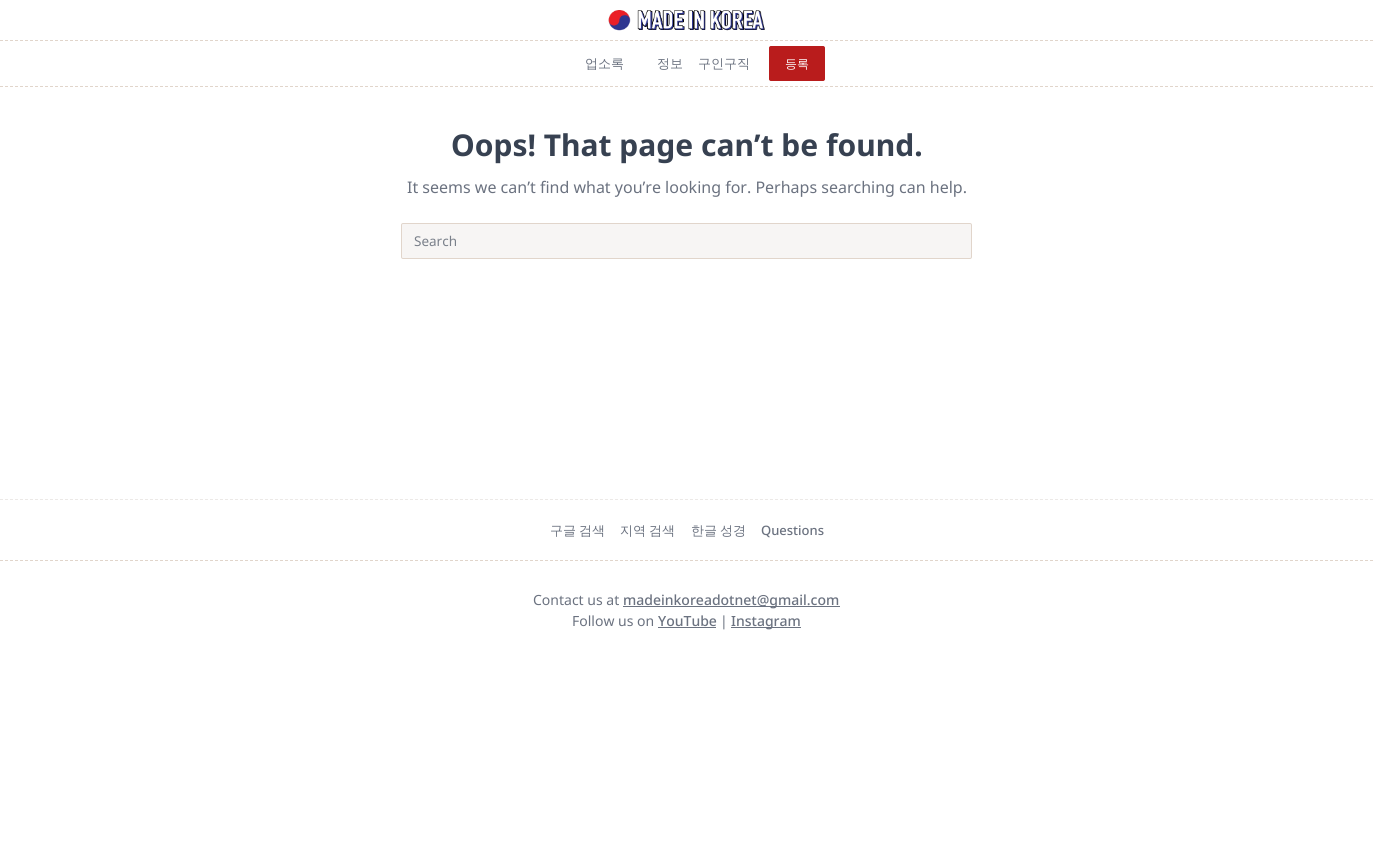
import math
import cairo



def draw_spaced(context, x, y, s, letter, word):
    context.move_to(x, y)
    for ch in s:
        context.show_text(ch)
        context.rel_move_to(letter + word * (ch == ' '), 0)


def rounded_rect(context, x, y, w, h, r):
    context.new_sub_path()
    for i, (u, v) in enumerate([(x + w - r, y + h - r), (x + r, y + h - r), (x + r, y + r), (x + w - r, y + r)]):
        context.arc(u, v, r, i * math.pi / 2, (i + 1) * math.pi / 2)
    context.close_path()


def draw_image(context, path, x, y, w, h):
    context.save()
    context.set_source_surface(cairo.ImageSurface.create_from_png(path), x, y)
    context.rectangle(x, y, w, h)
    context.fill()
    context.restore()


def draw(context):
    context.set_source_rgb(1, 1, 1)
    context.paint()
    draw_image(context, "images/1.png", 608, 10, 157, 21)
    context.new_path()
    context.move_to(0, 40.5)
    context.line_to(1373, 40.5)
    context.set_source_rgb(225 / 255, 213 / 255, 203 / 255)
    context.set_line_width(1)
    context.set_dash([3, 2])
    context.stroke()
    context.new_path()
    context.move_to(0, 86.5)
    context.line_to(1373, 86.5)
    context.stroke()
    context.set_source_rgb(185 / 255, 28 / 255, 28 / 255)
    rounded_rect(context, 769.5, 46.5, 55, 34, 1.5)
    context.fill_preserve()
    context.set_dash([])
    context.stroke()
    context.set_source_rgb(247 / 255, 245 / 255, 244 / 255)
    rounded_rect(context, 401.5, 223.5, 570, 35, 1.5)
    context.fill_preserve()
    context.set_source_rgb(225 / 255, 213 / 255, 203 / 255)
    context.stroke()
    context.new_path()
    context.move_to(0, 499.5)
    context.line_to(1373, 499.5)
    context.set_source_rgb(236 / 255, 233 / 255, 231 / 255)
    context.set_dash([3, 2])
    context.stroke()
    context.new_path()
    context.move_to(0, 560.5)
    context.line_to(1373, 560.5)
    context.set_source_rgb(225 / 255, 213 / 255, 203 / 255)
    context.stroke()
    context.set_source_rgb(107 / 255, 114 / 255, 128 / 255)
    context.rectangle(623, 606, 217, 1)
    context.fill()
    context.rectangle(658, 627, 58, 1)
    context.fill()
    context.rectangle(731, 627, 70, 1)
    context.fill()
    context.select_font_face("WenQuanYi Zen Hei Medium")
    context.set_font_size(13)
    context.move_to(585, 68)
    context.show_text("업소록")
    context.move_to(657, 68)
    context.show_text("정보")
    context.move_to(698, 68)
    context.show_text("구인구직")
    context.set_font_size(12)
    context.set_source_rgb(254 / 255, 252 / 255, 252 / 255)
    context.move_to(785, 68)
    context.show_text("등록")
    context.select_font_face("Noto Sans", cairo.FontSlant.NORMAL, cairo.FontWeight.BOLD)
    context.set_font_size(30)
    context.set_source_rgb(55 / 255, 65 / 255, 81 / 255)
    context.move_to(451, 156)
    context.show_text("Oops! That page can’t be found.")
    context.select_font_face("Noto Sans")
    context.set_font_size(16)
    context.set_source_rgb(107 / 255, 114 / 255, 128 / 255)
    context.move_to(407, 193)
    context.show_text("It seems we can’t find what you’re looking for. Perhaps searching can help.")
    context.set_font_size(13.5)
    context.set_source_rgb(122 / 255, 128 / 255, 138 / 255)
    context.move_to(414, 246)
    context.show_text("Search")
    context.select_font_face("WenQuanYi Zen Hei Medium")
    context.set_font_size(13)
    context.set_source_rgb(107 / 255, 114 / 255, 128 / 255)
    draw_spaced(context, 550, 535, "구글 검색", 0, -1)
    draw_spaced(context, 620, 535, "지역 검색", 0, -1)
    draw_spaced(context, 691, 535, "한글 성경", 0, -1)
    context.select_font_face("Noto Sans Medium")
    context.move_to(761, 535)
    context.show_text("Questions")
    context.select_font_face("Noto Sans")
    context.set_font_size(14)
    context.move_to(533, 605)
    context.show_text("Contact us at")
    context.select_font_face("Noto Sans Medium")
    context.move_to(623, 605)
    context.show_text("madeinkoreadotnet@gmail.com")
    context.select_font_face("Noto Sans")
    context.move_to(572, 626)
    context.show_text("Follow us on")
    context.select_font_face("Noto Sans Medium")
    context.move_to(658, 626)
    context.show_text("YouTube")
    context.select_font_face("Noto Sans")
    context.move_to(720, 626)
    context.show_text("|")
    context.select_font_face("Noto Sans Medium")
    context.move_to(731, 626)
    context.show_text("Instagram")


surface = cairo.ImageSurface(cairo.Format.RGB24, 1373, 863)
context = cairo.Context(surface)
options = cairo.FontOptions()
options.set_hint_metrics(cairo.HintMetrics.OFF)
options.set_hint_style(cairo.HintStyle.NONE)
context.set_font_options(options)
context.set_miter_limit(4)
draw(context)
surface.write_to_png("out.png")
